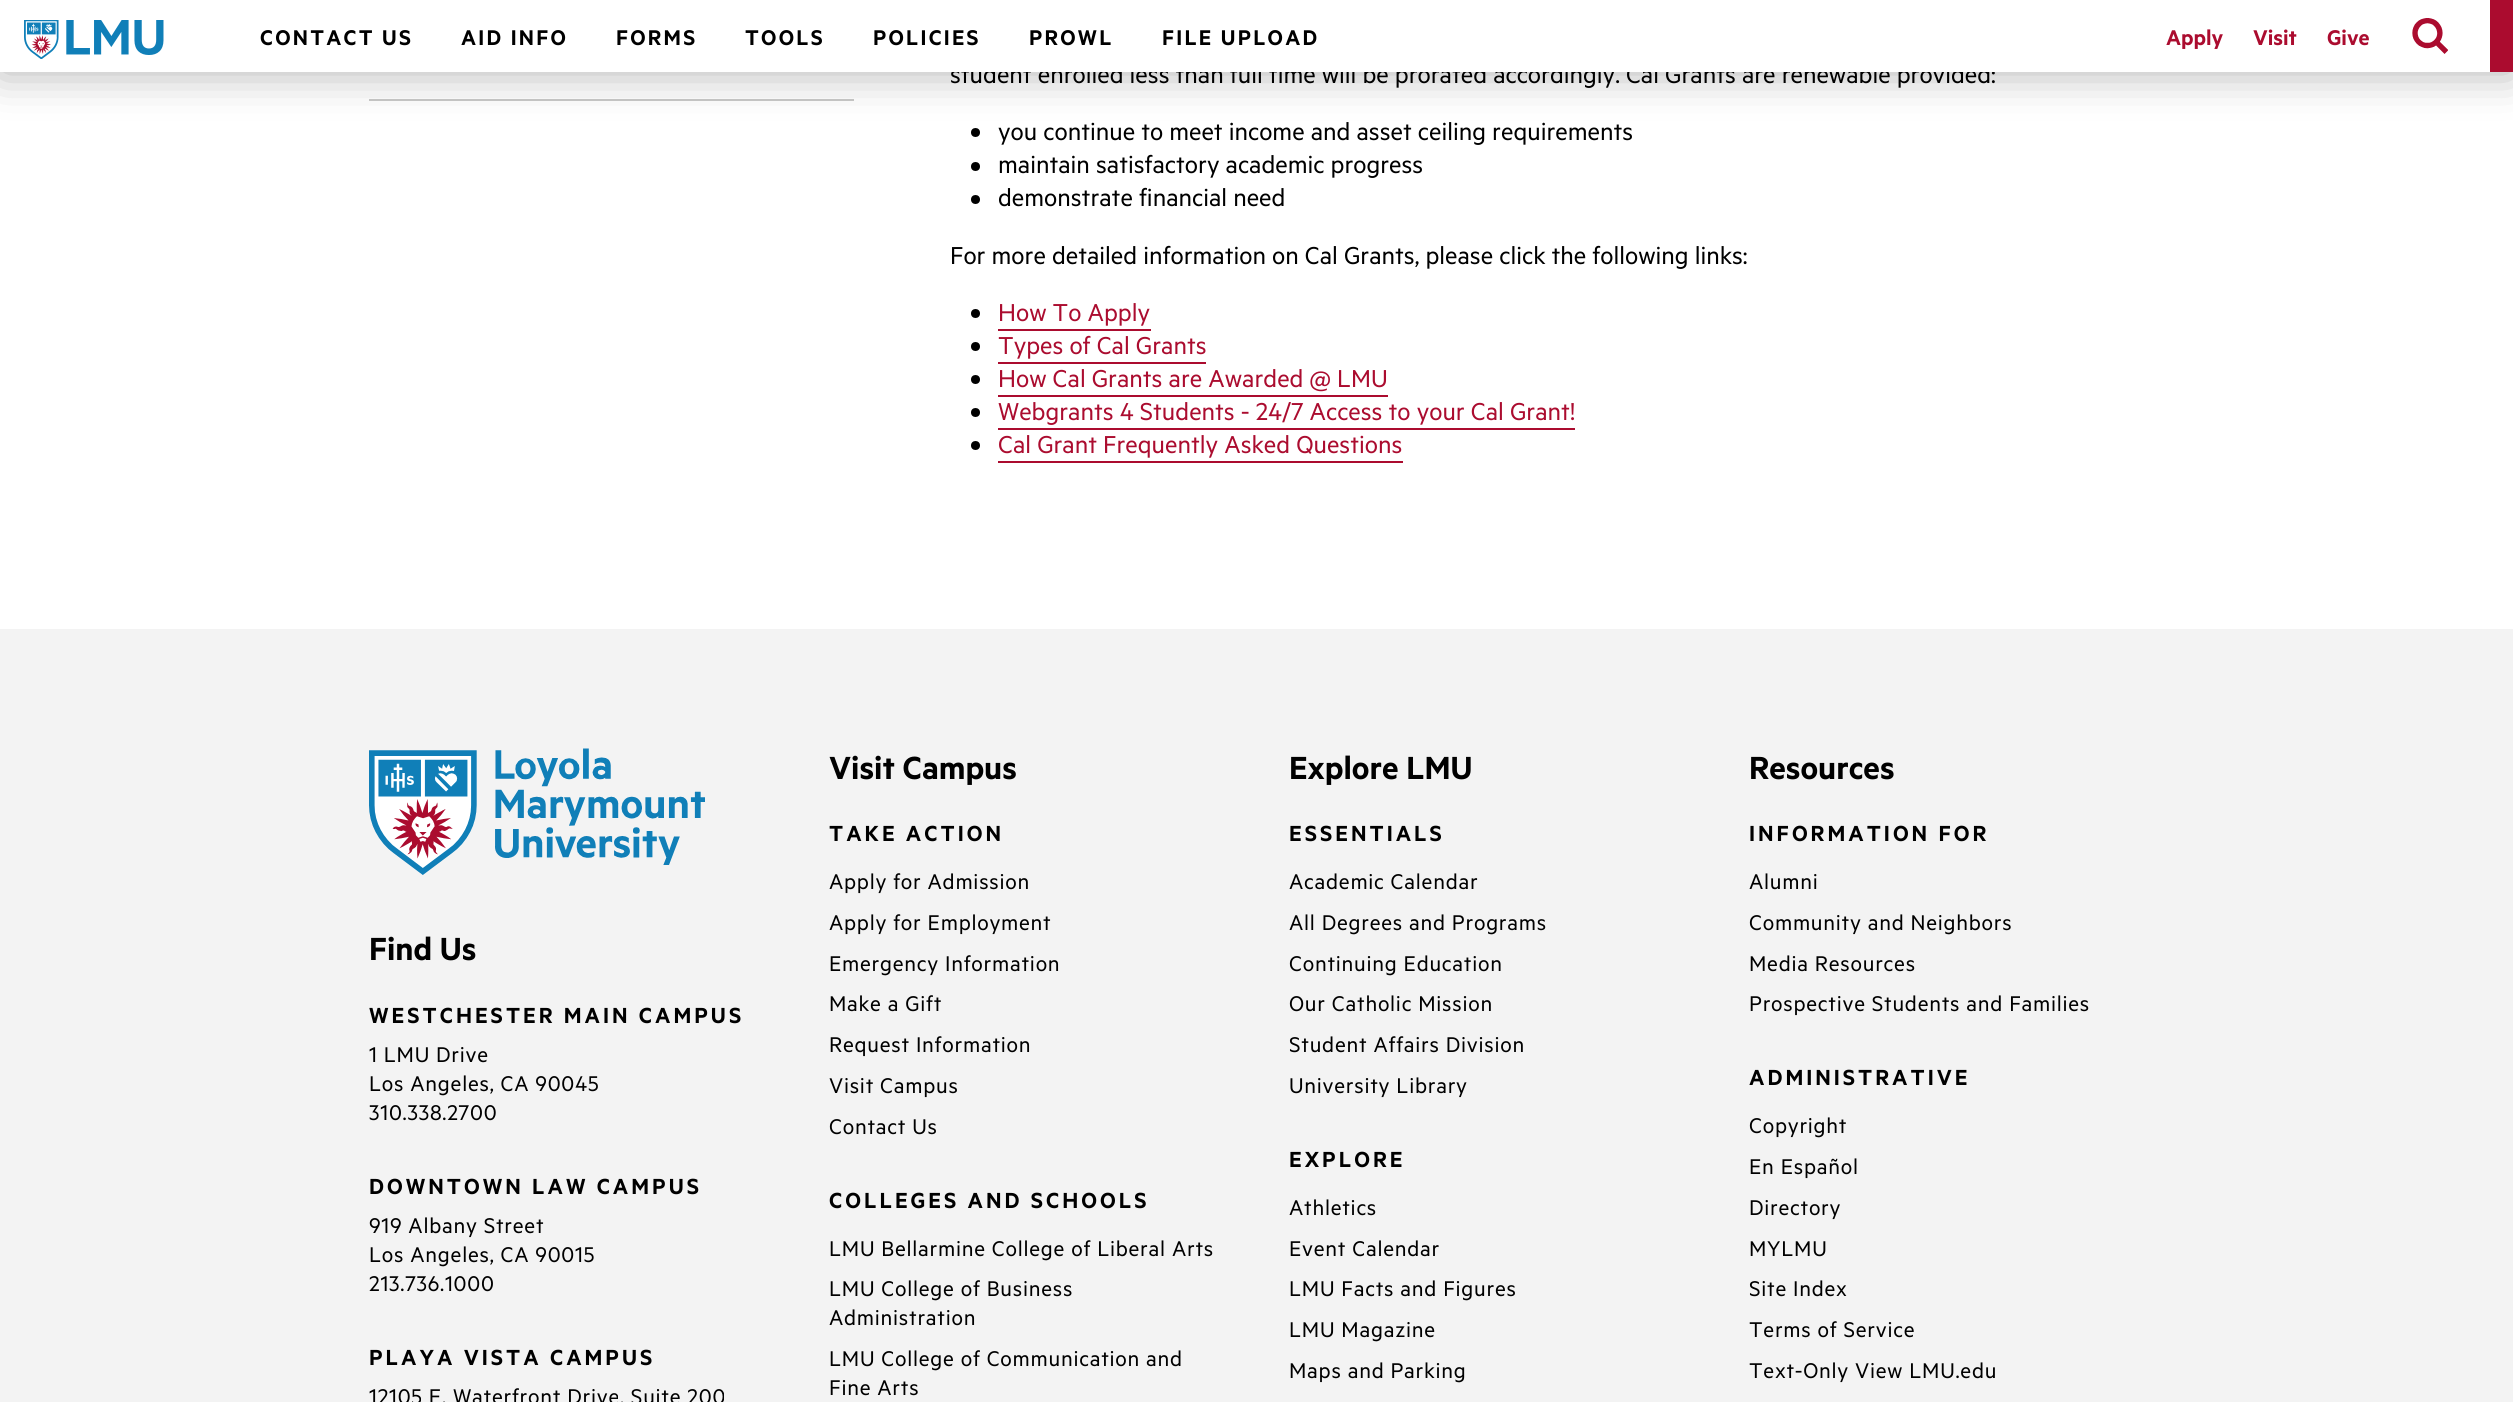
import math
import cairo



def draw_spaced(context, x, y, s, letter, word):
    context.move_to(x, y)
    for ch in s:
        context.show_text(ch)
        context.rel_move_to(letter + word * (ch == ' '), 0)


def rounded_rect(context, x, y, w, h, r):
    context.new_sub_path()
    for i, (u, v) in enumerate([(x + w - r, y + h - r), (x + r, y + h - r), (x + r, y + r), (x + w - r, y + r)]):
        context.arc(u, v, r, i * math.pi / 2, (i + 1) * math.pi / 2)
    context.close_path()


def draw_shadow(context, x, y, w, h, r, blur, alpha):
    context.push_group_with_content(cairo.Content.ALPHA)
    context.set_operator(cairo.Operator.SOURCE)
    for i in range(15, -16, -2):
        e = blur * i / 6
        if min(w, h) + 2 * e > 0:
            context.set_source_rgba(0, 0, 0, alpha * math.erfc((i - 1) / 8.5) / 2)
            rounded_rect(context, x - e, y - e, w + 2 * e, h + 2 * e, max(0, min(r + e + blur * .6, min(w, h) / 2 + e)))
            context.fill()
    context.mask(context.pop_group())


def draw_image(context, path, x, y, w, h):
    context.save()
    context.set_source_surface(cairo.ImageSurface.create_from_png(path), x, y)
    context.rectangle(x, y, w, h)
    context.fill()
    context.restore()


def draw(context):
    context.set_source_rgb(1, 1, 1)
    context.paint()
    context.set_source_rgb(200 / 255, 201 / 255, 199 / 255)
    context.rectangle(369, 99, 485, 2)
    context.fill()
    context.set_source_rgb(0, 0, 0)
    context.arc(975.5, 132.5, 4.5, 0, 2 * math.pi)
    context.fill()
    context.set_source_rgb(0, 0, 0)
    draw_shadow(context, 0, 0, 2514, 72, 0, 22.5, 0.32)
    context.set_source_rgb(171 / 255, 12 / 255, 47 / 255)
    context.rectangle(2490, 0, 23, 72)
    context.fill()
    context.set_source_rgb(0, 0, 0)
    context.arc(975.5, 166.5, 4.5, 0, 2 * math.pi)
    context.fill()
    context.arc(975.5, 199.5, 4.5, 0, 2 * math.pi)
    context.fill()
    context.arc(975.5, 313.5, 4.5, 0, 2 * math.pi)
    context.fill()
    context.set_source_rgb(171 / 255, 12 / 255, 47 / 255)
    context.rectangle(998, 329, 153, 2)
    context.fill()
    context.set_source_rgb(0, 0, 0)
    context.arc(975.5, 346.5, 4.5, 0, 2 * math.pi)
    context.fill()
    context.set_source_rgb(171 / 255, 12 / 255, 47 / 255)
    context.rectangle(998, 362, 208, 2)
    context.fill()
    context.set_source_rgb(0, 0, 0)
    context.arc(975.5, 379.5, 4.5, 0, 2 * math.pi)
    context.fill()
    context.set_source_rgb(171 / 255, 12 / 255, 47 / 255)
    context.rectangle(998, 395, 390, 2)
    context.fill()
    context.set_source_rgb(0, 0, 0)
    context.arc(975.5, 412.5, 4.5, 0, 2 * math.pi)
    context.fill()
    context.set_source_rgb(171 / 255, 12 / 255, 47 / 255)
    context.rectangle(998, 428, 577, 2)
    context.fill()
    context.set_source_rgb(0, 0, 0)
    context.arc(975.5, 445.5, 4.5, 0, 2 * math.pi)
    context.fill()
    context.set_source_rgb(171 / 255, 12 / 255, 47 / 255)
    context.rectangle(998, 461, 405, 2)
    context.fill()
    context.set_source_rgb(243 / 255, 243 / 255, 243 / 255)
    context.rectangle(0, 629, 2513, 773)
    context.fill()
    draw_image(context, "images/3.png", 369, 748, 336, 127)
    context.select_font_face("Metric")
    context.set_font_size(27.6)
    context.set_source_rgb(0, 0, 0)
    context.move_to(950, 83)
    context.show_text("student enrolled less than full time will be prorated accordingly. Cal Grants are renewable provided:")
    context.set_source_rgb(1, 1, 1)
    context.rectangle(0, 0, 2490, 72)
    context.fill()
    draw_image(context, "images/2.png", 2412, 18, 36, 36)
    draw_image(context, "images/1.png", 24, 20, 140, 39)
    context.select_font_face("Metric SemiBold")
    context.set_font_size(24)
    context.set_source_rgb(171 / 255, 12 / 255, 47 / 255)
    context.move_to(2327, 45)
    context.show_text("Give")
    context.move_to(2253, 45)
    context.show_text("Visit")
    context.move_to(2166, 45)
    context.show_text("Apply")
    context.set_source_rgb(0, 0, 0)
    draw_spaced(context, 1162, 45, "FILE UPLOAD", 2.25, 0)
    draw_spaced(context, 1029, 45, "PROWL", 2.25, 0)
    draw_spaced(context, 873, 45, "POLICIES", 2.25, 0)
    draw_spaced(context, 745, 45, "TOOLS", 2.25, 0)
    draw_spaced(context, 616, 45, "FORMS", 2.25, 0)
    draw_spaced(context, 461, 45, "AID INFO", 2.25, 0)
    draw_spaced(context, 260, 45, "CONTACT US", 2.25, 0)
    context.select_font_face("Metric")
    context.set_font_size(27.6)
    context.move_to(998, 140)
    context.show_text("you continue to meet income and asset ceiling requirements")
    context.move_to(998, 173)
    context.show_text("maintain satisfactory academic progress")
    context.move_to(998, 206)
    context.show_text("demonstrate financial need")
    context.move_to(950, 264)
    context.show_text("For more detailed information on Cal Grants, please click the following links:")
    context.set_source_rgb(171 / 255, 12 / 255, 47 / 255)
    context.move_to(998, 321)
    context.show_text("How To Apply")
    context.move_to(998, 354)
    context.show_text("Types of Cal Grants")
    context.move_to(998, 387)
    context.show_text("How Cal Grants are Awarded @ LMU")
    context.move_to(998, 420)
    context.show_text("Webgrants 4 Students - 24/7 Access to your Cal Grant!")
    context.move_to(998, 453)
    context.show_text("Cal Grant Frequently Asked Questions")
    context.select_font_face("Metric SemiBold")
    context.set_font_size(36)
    context.set_source_rgb(0, 0, 0)
    context.move_to(369, 960)
    context.show_text("Find Us")
    context.set_font_size(24.6)
    draw_spaced(context, 369, 1023, "WESTCHESTER MAIN CAMPUS", 3, 0)
    context.select_font_face("Metric")
    context.set_font_size(24)
    draw_spaced(context, 369, 1062, "1 LMU Drive", 0.75, 0)
    draw_spaced(context, 369, 1091, "Los Angeles, CA 90045", 0.75, 0)
    draw_spaced(context, 369, 1120, "310.338.2700", 0.75, 0)
    context.select_font_face("Metric SemiBold")
    context.set_font_size(24.6)
    draw_spaced(context, 369, 1194, "DOWNTOWN LAW CAMPUS", 3, 0)
    context.select_font_face("Metric")
    context.set_font_size(24)
    draw_spaced(context, 369, 1233, "919 Albany Street", 0.75, 0)
    draw_spaced(context, 369, 1262, "Los Angeles, CA 90015", 0.75, 0)
    draw_spaced(context, 369, 1291, "213.736.1000", 0.75, 0)
    context.select_font_face("Metric SemiBold")
    context.set_font_size(24.6)
    draw_spaced(context, 369, 1365, "PLAYA VISTA CAMPUS", 3, 0)
    context.select_font_face("Metric")
    context.set_font_size(24)
    draw_spaced(context, 369, 1404, "12105 E. Waterfront Drive, Suite 200", 0.75, 0)
    context.select_font_face("Metric SemiBold")
    context.set_font_size(36)
    context.move_to(829, 779)
    context.show_text("Visit Campus")
    context.set_font_size(24.6)
    draw_spaced(context, 829, 841, "TAKE ACTION", 3, 0)
    context.select_font_face("Metric")
    context.set_font_size(24)
    draw_spaced(context, 829, 889, "Apply for Admission", 0.75, 0)
    draw_spaced(context, 829, 930, "Apply for Employment", 0.75, 0)
    draw_spaced(context, 829, 971, "Emergency Information", 0.75, 0)
    draw_spaced(context, 829, 1011, "Make a Gift", 0.75, 0)
    draw_spaced(context, 829, 1052, "Request Information", 0.75, 0)
    draw_spaced(context, 829, 1093, "Visit Campus", 0.75, 0)
    draw_spaced(context, 829, 1134, "Contact Us", 0.75, 0)
    context.select_font_face("Metric SemiBold")
    context.set_font_size(24.6)
    draw_spaced(context, 829, 1208, "COLLEGES AND SCHOOLS", 3, 0)
    context.select_font_face("Metric")
    context.set_font_size(24)
    draw_spaced(context, 829, 1256, "LMU Bellarmine College of Liberal Arts", 0.75, 0)
    draw_spaced(context, 829, 1296, "LMU College of Business", 0.75, 0)
    draw_spaced(context, 829, 1325, "Administration", 0.75, 0)
    draw_spaced(context, 829, 1366, "LMU College of Communication and", 0.75, 0)
    draw_spaced(context, 829, 1395, "Fine Arts", 0.75, 0)
    context.select_font_face("Metric SemiBold")
    context.set_font_size(36)
    context.move_to(1289, 779)
    context.show_text("Explore LMU")
    context.set_font_size(24.6)
    draw_spaced(context, 1289, 841, "ESSENTIALS", 3, 0)
    context.select_font_face("Metric")
    context.set_font_size(24)
    draw_spaced(context, 1289, 889, "Academic Calendar", 0.75, 0)
    draw_spaced(context, 1289, 930, "All Degrees and Programs", 0.75, 0)
    draw_spaced(context, 1289, 971, "Continuing Education", 0.75, 0)
    draw_spaced(context, 1289, 1011, "Our Catholic Mission", 0.75, 0)
    draw_spaced(context, 1289, 1052, "Student Affairs Division", 0.75, 0)
    draw_spaced(context, 1289, 1093, "University Library", 0.75, 0)
    context.select_font_face("Metric SemiBold")
    context.set_font_size(24.6)
    draw_spaced(context, 1289, 1167, "EXPLORE", 3, 0)
    context.select_font_face("Metric")
    context.set_font_size(24)
    draw_spaced(context, 1289, 1215, "Athletics", 0.75, 0)
    draw_spaced(context, 1289, 1256, "Event Calendar", 0.75, 0)
    draw_spaced(context, 1289, 1296, "LMU Facts and Figures", 0.75, 0)
    draw_spaced(context, 1289, 1337, "LMU Magazine", 0.75, 0)
    draw_spaced(context, 1289, 1378, "Maps and Parking", 0.75, 0)
    context.select_font_face("Metric SemiBold")
    context.set_font_size(36)
    context.move_to(1749, 779)
    context.show_text("Resources")
    context.set_font_size(24.6)
    draw_spaced(context, 1749, 841, "INFORMATION FOR", 3, 0)
    context.select_font_face("Metric")
    context.set_font_size(24)
    draw_spaced(context, 1749, 889, "Alumni", 0.75, 0)
    draw_spaced(context, 1749, 930, "Community and Neighbors", 0.75, 0)
    draw_spaced(context, 1749, 971, "Media Resources", 0.75, 0)
    draw_spaced(context, 1749, 1011, "Prospective Students and Families", 0.75, 0)
    context.select_font_face("Metric SemiBold")
    context.set_font_size(24.6)
    draw_spaced(context, 1749, 1085, "ADMINISTRATIVE", 3, 0)
    context.select_font_face("Metric")
    context.set_font_size(24)
    draw_spaced(context, 1749, 1133, "Copyright", 0.75, 0)
    draw_spaced(context, 1749, 1174, "En Español", 0.75, 0)
    draw_spaced(context, 1749, 1215, "Directory", 0.75, 0)
    draw_spaced(context, 1749, 1256, "MYLMU", 0.75, 0)
    draw_spaced(context, 1749, 1296, "Site Index", 0.75, 0)
    draw_spaced(context, 1749, 1337, "Terms of Service", 0.75, 0)
    draw_spaced(context, 1749, 1378, "Text-Only View LMU.edu", 0.75, 0)


surface = cairo.ImageSurface(cairo.Format.RGB24, 2513, 1402)
context = cairo.Context(surface)
options = cairo.FontOptions()
options.set_hint_metrics(cairo.HintMetrics.OFF)
options.set_hint_style(cairo.HintStyle.NONE)
context.set_font_options(options)
context.set_miter_limit(4)
draw(context)
surface.write_to_png("out.png")
